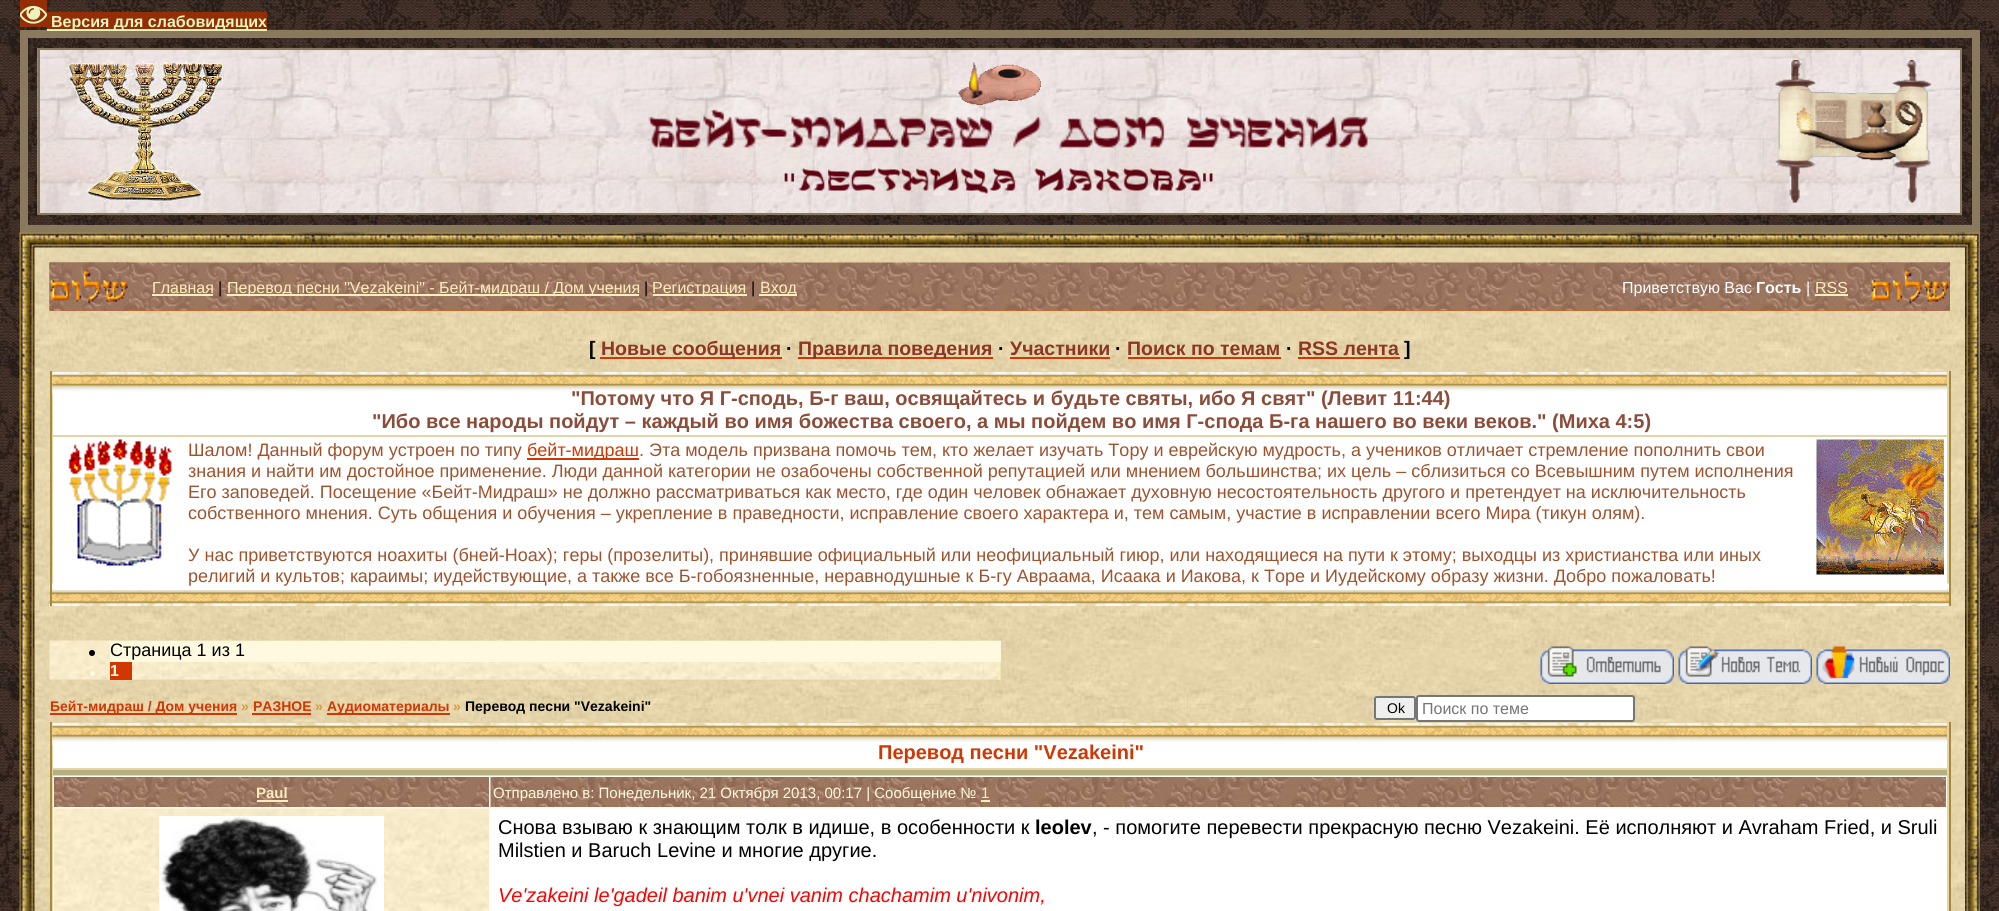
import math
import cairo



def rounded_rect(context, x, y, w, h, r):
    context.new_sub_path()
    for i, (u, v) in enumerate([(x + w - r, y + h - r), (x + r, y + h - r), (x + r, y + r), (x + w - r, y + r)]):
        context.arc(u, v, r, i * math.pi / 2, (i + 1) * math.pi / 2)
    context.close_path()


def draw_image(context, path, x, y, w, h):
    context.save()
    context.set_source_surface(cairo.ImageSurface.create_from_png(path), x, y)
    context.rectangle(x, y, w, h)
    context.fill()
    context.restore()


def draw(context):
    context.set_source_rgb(1, 1, 1)
    context.paint()
    draw_image(context, "images/1.png", 0, 0, 1999, 911)
    context.set_source_rgb(148 / 255, 46 / 255, 6 / 255)
    context.rectangle(20, 0, 27, 27)
    context.fill()
    draw_image(context, "images/2.png", 20, 5, 27, 19)
    context.rectangle(47, 12, 4, 18)
    context.fill()
    context.rectangle(51, 12, 216, 17)
    context.fill()
    context.rectangle(24, 34, 1952, 195)
    context.set_source_rgb(139 / 255, 121 / 255, 94 / 255)
    context.set_line_width(8)
    context.stroke()
    context.set_source_rgb(234 / 255, 245 / 255, 188 / 255)
    context.rectangle(47, 29, 220, 2)
    context.fill()
    draw_image(context, "images/3.png", 37, 48, 1923, 167)
    context.rectangle(39, 49, 1922, 165)
    context.set_source_rgb(139 / 255, 121 / 255, 94 / 255)
    context.set_line_width(2)
    context.stroke()
    draw_image(context, "images/4.png", 64, 60, 159, 142)
    draw_image(context, "images/5.png", 1774, 60, 159, 143)
    draw_image(context, "images/6.png", 958, 62, 83, 43)
    draw_image(context, "images/7.png", 648, 109, 720, 41)
    draw_image(context, "images/8.png", 784, 168, 429, 26)
    draw_image(context, "images/10.png", 34, 232, 1931, 16)
    draw_image(context, "images/12.png", 19, 247, 16, 664)
    draw_image(context, "images/13.png", 34, 247, 1931, 664)
    draw_image(context, "images/9.png", 19, 232, 16, 16)
    draw_image(context, "images/30.png", 1965, 247, 15, 664)
    draw_image(context, "images/11.png", 1965, 232, 15, 16)
    context.set_source_rgb(230 / 255, 93 / 255, 3 / 255)
    context.rectangle(50, 310, 1900, 1)
    context.fill()
    draw_image(context, "images/14.png", 49, 262, 1901, 49)
    draw_image(context, "images/15.png", 49, 262, 80, 49)
    context.set_source_rgb(1, 236 / 255, 189 / 255)
    context.rectangle(152, 294, 61, 2)
    context.fill()
    context.rectangle(227, 294, 412, 2)
    context.fill()
    context.rectangle(653, 294, 94, 2)
    context.fill()
    context.rectangle(759, 294, 38, 2)
    context.fill()
    context.rectangle(1815, 294, 33, 2)
    context.fill()
    draw_image(context, "images/16.png", 1870, 262, 80, 49)
    context.set_source_rgb(209 / 255, 55 / 255, 2 / 255)
    context.rectangle(600, 357, 182, 2)
    context.fill()
    context.rectangle(798, 357, 195, 2)
    context.fill()
    context.rectangle(1010, 357, 100, 2)
    context.fill()
    context.rectangle(1128, 357, 153, 2)
    context.fill()
    context.rectangle(1298, 357, 102, 2)
    context.fill()
    context.set_source_rgb(229 / 255, 212 / 255, 169 / 255)
    context.rectangle(52, 371, 1897, 213)
    context.fill()
    draw_image(context, "images/17.png", 49, 583, 1900, 23)
    context.set_source_rgb(165 / 255, 137 / 255, 60 / 255)
    context.rectangle(1949, 371, 2, 235)
    context.fill()
    context.rectangle(50, 371, 2, 235)
    context.fill()
    context.set_source_rgb(1, 1, 1)
    context.rectangle(53, 394, 1894, 41)
    context.fill()
    draw_image(context, "images/18.png", 52, 372, 1895, 23)
    context.rectangle(53, 437, 1894, 153)
    context.fill()
    draw_image(context, "images/19.png", 68, 439, 104, 127)
    context.set_source_rgb(209 / 255, 55 / 255, 2 / 255)
    context.rectangle(527, 458, 112, 2)
    context.fill()
    draw_image(context, "images/20.png", 1816, 439, 128, 136)
    context.set_source_rgb(235 / 255, 217 / 255, 142 / 255)
    context.rectangle(50, 662, 951, 18)
    context.fill()
    draw_image(context, "images/21.png", 49, 640, 952, 40)
    context.set_source_rgb(1, 250 / 255, 223 / 255)
    context.rectangle(110, 641, 891, 21)
    context.fill()
    context.set_source_rgb(0, 0, 0)
    context.arc(92, 653, 3, 0, 2 * math.pi)
    context.fill()
    context.set_source_rgb(209 / 255, 55 / 255, 2 / 255)
    context.rectangle(110, 662, 22, 18)
    context.fill()
    context.set_source_rgb(1, 250 / 255, 223 / 255)
    context.arc(92.5, 673.5, 2.5, 0, 2 * math.pi)
    context.fill()
    draw_image(context, "images/22.png", 1540, 646, 134, 38)
    draw_image(context, "images/23.png", 1678, 646, 134, 38)
    draw_image(context, "images/24.png", 1816, 646, 134, 38)
    context.set_source_rgb(209 / 255, 55 / 255, 2 / 255)
    context.rectangle(50, 713, 187, 2)
    context.fill()
    context.rectangle(252, 713, 59, 2)
    context.fill()
    context.rectangle(327, 713, 123, 2)
    context.fill()
    context.set_source_rgb(239 / 255, 239 / 255, 239 / 255)
    rounded_rect(context, 1375, 697, 40, 22, 2)
    context.fill_preserve()
    context.set_source_rgb(118 / 255, 118 / 255, 118 / 255)
    context.stroke()
    context.set_source_rgb(1, 1, 1)
    rounded_rect(context, 1417, 696, 217, 25, 2)
    context.fill_preserve()
    context.set_source_rgb(118 / 255, 118 / 255, 118 / 255)
    context.stroke()
    context.set_source_rgb(229 / 255, 212 / 255, 169 / 255)
    context.rectangle(52, 722, 1897, 189)
    context.fill()
    context.set_source_rgb(165 / 255, 137 / 255, 60 / 255)
    context.rectangle(1949, 722, 2, 189)
    context.fill()
    context.rectangle(50, 722, 2, 189)
    context.fill()
    context.set_source_rgb(1, 1, 1)
    context.rectangle(53, 745, 1894, 23)
    context.fill()
    draw_image(context, "images/25.png", 52, 723, 1895, 23)
    context.set_source_rgb(181 / 255, 175 / 255, 128 / 255)
    context.rectangle(53, 770, 1894, 5)
    context.fill()
    context.set_source_rgb(253 / 255, 252 / 255, 244 / 255)
    context.rectangle(53, 776, 1894, 135)
    context.fill()
    draw_image(context, "images/26.png", 54, 777, 435, 30)
    context.set_source_rgb(1, 236 / 255, 189 / 255)
    context.rectangle(257, 800, 31, 2)
    context.fill()
    context.set_source_rgb(230 / 255, 93 / 255, 3 / 255)
    context.rectangle(1945, 777, 1, 30)
    context.fill()
    draw_image(context, "images/27.png", 490, 777, 1456, 30)
    context.set_source_rgb(1, 236 / 255, 189 / 255)
    context.rectangle(981, 800, 9, 2)
    context.fill()
    draw_image(context, "images/28.png", 54, 808, 435, 103)
    draw_image(context, "images/29.png", 159, 816, 225, 95)
    context.set_source_rgb(1, 1, 1)
    context.rectangle(491, 809, 1455, 102)
    context.fill()
    context.select_font_face("Liberation Sans", cairo.FontSlant.NORMAL, cairo.FontWeight.BOLD)
    context.set_font_size(16)
    context.set_source_rgb(234 / 255, 245 / 255, 188 / 255)
    context.move_to(51, 27)
    context.show_text("Версия для слабовидящих")
    context.select_font_face("Liberation Sans")
    context.set_source_rgb(1, 236 / 255, 189 / 255)
    context.move_to(152, 293)
    context.show_text("Главная")
    context.set_source_rgb(0, 0, 0)
    context.move_to(218, 293)
    context.show_text("|")
    context.set_source_rgb(1, 236 / 255, 189 / 255)
    context.move_to(227, 293)
    context.show_text("Перевод песни \"Vezakeini\" - Бейт-мидраш / Дом учения")
    context.set_source_rgb(0, 0, 0)
    context.move_to(644, 293)
    context.show_text("|")
    context.set_source_rgb(1, 236 / 255, 189 / 255)
    context.move_to(652, 293)
    context.show_text("Регистрация")
    context.set_source_rgb(0, 0, 0)
    context.move_to(751, 293)
    context.show_text("|")
    context.set_source_rgb(1, 236 / 255, 189 / 255)
    context.move_to(760, 293)
    context.show_text("Вход")
    context.set_source_rgb(1, 1, 1)
    context.move_to(1622, 293)
    context.show_text("Приветствую Вас")
    context.select_font_face("Liberation Sans", cairo.FontSlant.NORMAL, cairo.FontWeight.BOLD)
    context.move_to(1756, 293)
    context.show_text("Гость")
    context.select_font_face("Liberation Sans")
    context.move_to(1806, 293)
    context.show_text("|")
    context.set_source_rgb(1, 236 / 255, 189 / 255)
    context.move_to(1815, 293)
    context.show_text("RSS")
    context.select_font_face("Liberation Sans", cairo.FontSlant.NORMAL, cairo.FontWeight.BOLD)
    context.set_font_size(19.5)
    context.set_source_rgb(0, 0, 0)
    context.move_to(589, 355)
    context.show_text("[")
    context.set_source_rgb(139 / 255, 54 / 255, 38 / 255)
    context.move_to(601, 355)
    context.show_text("Новые сообщения")
    context.set_source_rgb(0, 0, 0)
    context.move_to(786, 355)
    context.show_text("·")
    context.set_source_rgb(139 / 255, 54 / 255, 38 / 255)
    context.move_to(798, 355)
    context.show_text("Правила поведения")
    context.set_source_rgb(0, 0, 0)
    context.move_to(998, 355)
    context.show_text("·")
    context.set_source_rgb(139 / 255, 54 / 255, 38 / 255)
    context.move_to(1010, 355)
    context.show_text("Участники")
    context.set_source_rgb(0, 0, 0)
    context.move_to(1115, 355)
    context.show_text("·")
    context.set_source_rgb(139 / 255, 54 / 255, 38 / 255)
    context.move_to(1127, 355)
    context.show_text("Поиск по темам")
    context.set_source_rgb(0, 0, 0)
    context.move_to(1286, 355)
    context.show_text("·")
    context.set_source_rgb(139 / 255, 54 / 255, 38 / 255)
    context.move_to(1298, 355)
    context.show_text("RSS лента")
    context.set_source_rgb(0, 0, 0)
    context.move_to(1404, 355)
    context.show_text("]")
    context.set_font_size(20)
    context.set_source_rgb(139 / 255, 76 / 255, 57 / 255)
    context.move_to(571, 405)
    context.show_text("\"Потому что Я Г-сподь, Б-г ваш, освящайтесь и будьте святы, ибо Я свят\" (Левит 11:44)")
    context.move_to(372, 428)
    context.show_text("\"Ибо все народы пойдут – каждый во имя божества своего, а мы пойдем во имя Г-спода Б-га нашего во веки веков.\" (Миха 4:5)")
    context.select_font_face("Liberation Sans")
    context.set_font_size(18)
    context.set_source_rgb(160 / 255, 82 / 255, 45 / 255)
    context.move_to(188, 456)
    context.show_text("Шалом! Данный форум устроен по типу")
    context.set_source_rgb(209 / 255, 55 / 255, 2 / 255)
    context.move_to(527, 456)
    context.show_text("бейт-мидраш")
    context.set_source_rgb(160 / 255, 82 / 255, 45 / 255)
    context.move_to(639, 456)
    context.show_text(". Эта модель призвана помочь тем, кто желает изучать Тору и еврейскую мудрость, а учеников отличает стремление пополнить свои")
    context.move_to(188, 477)
    context.show_text("знания и найти им достойное применение. Люди данной категории не озабочены собственной репутацией или мнением большинства; их цель – сблизиться со Всевышним путем исполнения")
    context.move_to(188, 498)
    context.show_text("Его заповедей. Посещение «Бейт-Мидраш» не должно рассматриваться как место, где один человек обнажает духовную несостоятельность другого и претендует на исключительность")
    context.move_to(188, 519)
    context.show_text("собственного мнения. Суть общения и обучения – укрепление в праведности, исправление своего характера и, тем самым, участие в исправлении всего Мира (тикун олям).")
    context.move_to(188, 561)
    context.show_text("У нас приветствуются ноахиты (бней-Ноах); геры (прозелиты), принявшие официальный или неофициальный гиюр, или находящиеся на пути к этому; выходцы из христианства или иных")
    context.move_to(188, 582)
    context.show_text("религий и культов; караимы; иудействующие, а также все Б-гобоязненные, неравнодушные к Б-гу Авраама, Исаака и Иакова, к Торе и Иудейскому образу жизни. Добро пожаловать!")
    context.set_source_rgb(0, 0, 0)
    context.move_to(110, 656)
    context.show_text("Страница 1 из 1")
    context.select_font_face("Liberation Sans", cairo.FontSlant.NORMAL, cairo.FontWeight.BOLD)
    context.set_font_size(16)
    context.set_source_rgb(1, 250 / 255, 223 / 255)
    context.move_to(110, 676)
    context.show_text("1")
    context.set_font_size(14)
    context.set_source_rgb(209 / 255, 55 / 255, 2 / 255)
    context.move_to(50, 711)
    context.show_text("Бейт-мидраш / Дом учения")
    context.set_source_rgb(214 / 255, 157 / 255, 48 / 255)
    context.move_to(241, 711)
    context.show_text("»")
    context.set_source_rgb(209 / 255, 55 / 255, 2 / 255)
    context.move_to(253, 711)
    context.show_text("РАЗНОЕ")
    context.set_source_rgb(214 / 255, 157 / 255, 48 / 255)
    context.move_to(315, 711)
    context.show_text("»")
    context.set_source_rgb(209 / 255, 55 / 255, 2 / 255)
    context.move_to(327, 711)
    context.show_text("Аудиоматериалы")
    context.set_source_rgb(214 / 255, 157 / 255, 48 / 255)
    context.move_to(453, 711)
    context.show_text("»")
    context.set_source_rgb(0, 0, 0)
    context.move_to(465, 711)
    context.show_text("Перевод песни \"Vezakeini\"")
    context.select_font_face("Liberation Sans")
    context.move_to(1387, 713)
    context.show_text("Ok")
    context.set_font_size(16)
    context.set_source_rgb(117 / 255, 117 / 255, 117 / 255)
    context.move_to(1422, 714)
    context.show_text("Поиск по теме")
    context.select_font_face("Liberation Sans", cairo.FontSlant.NORMAL, cairo.FontWeight.BOLD)
    context.set_font_size(20)
    context.set_source_rgb(209 / 255, 55 / 255, 2 / 255)
    context.move_to(878, 759)
    context.show_text("Перевод песни \"Vezakeini\"")
    context.set_font_size(15)
    context.set_source_rgb(1, 236 / 255, 189 / 255)
    context.move_to(256, 798)
    context.show_text("Paul")
    context.select_font_face("Liberation Sans")
    context.set_source_rgb(1, 250 / 255, 223 / 255)
    context.move_to(493, 798)
    context.show_text("Отправлено в: Понедельник, 21 Октября 2013, 00:17 | Сообщение №")
    context.set_source_rgb(1, 236 / 255, 189 / 255)
    context.move_to(981, 798)
    context.show_text("1")
    context.set_font_size(20)
    context.set_source_rgb(0, 0, 0)
    context.move_to(498, 834)
    context.show_text("Снова взываю к знающим толк в идише, в особенности к")
    context.select_font_face("Liberation Sans", cairo.FontSlant.NORMAL, cairo.FontWeight.BOLD)
    context.move_to(1035, 834)
    context.show_text("leolev")
    context.select_font_face("Liberation Sans")
    context.move_to(1092, 834)
    context.show_text(", - помогите перевести прекрасную песню Vezakeini. Её исполняют и Avraham Fried, и Sruli")
    context.move_to(498, 857)
    context.show_text("Milstien и Baruch Levine и многие другие.")
    context.select_font_face("Liberation Sans", cairo.FontSlant.ITALIC)
    context.set_source_rgb(1, 0, 0)
    context.move_to(498, 902)
    context.show_text("Ve'zakeini le'gadeil banim u'vnei vanim chachamim u'nivonim,")


surface = cairo.ImageSurface(cairo.Format.RGB24, 1999, 911)
context = cairo.Context(surface)
options = cairo.FontOptions()
options.set_hint_metrics(cairo.HintMetrics.OFF)
options.set_hint_style(cairo.HintStyle.NONE)
context.set_font_options(options)
context.set_miter_limit(4)
draw(context)
surface.write_to_png("out.png")
